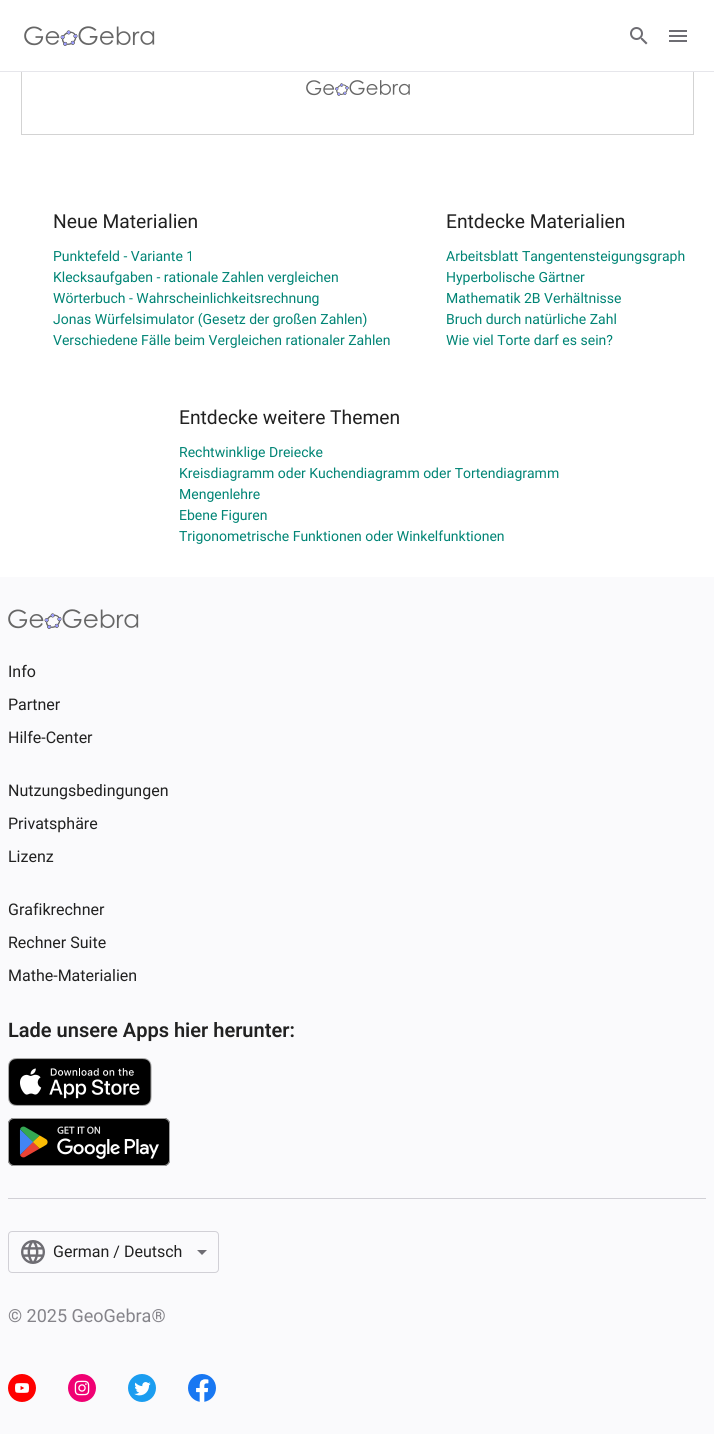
import math
import cairo



def rounded_rect(context, x, y, w, h, r):
    context.new_sub_path()
    for i, (u, v) in enumerate([(x + w - r, y + h - r), (x + r, y + h - r), (x + r, y + r), (x + w - r, y + r)]):
        context.arc(u, v, r, i * math.pi / 2, (i + 1) * math.pi / 2)
    context.close_path()


def draw_image(context, path, x, y, w, h):
    context.save()
    context.set_source_surface(cairo.ImageSurface.create_from_png(path), x, y)
    context.rectangle(x, y, w, h)
    context.fill()
    context.restore()


def draw(context):
    context.set_source_rgb(1, 1, 1)
    context.paint()
    draw_image(context, "images/4.png", 306, 80, 104, 16)
    context.rectangle(21.5, -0.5, 672, 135)
    context.set_source_rgb(211 / 255, 211 / 255, 211 / 255)
    context.set_line_width(1)
    context.stroke()
    context.set_source_rgb(1, 1, 1)
    context.rectangle(21, 0, 673, 71)
    context.fill()
    context.set_source_rgb(230 / 255, 230 / 255, 235 / 255)
    context.rectangle(0, 71, 714, 1)
    context.fill()
    draw_image(context, "images/1.png", 24, 26, 131, 20)
    draw_image(context, "images/2.png", 630, 27, 18, 18)
    draw_image(context, "images/3.png", 669, 30, 18, 12)
    context.set_source_rgb(250 / 255, 250 / 255, 252 / 255)
    context.rectangle(0, 577, 714, 857)
    context.fill()
    draw_image(context, "images/5.png", 8, 609, 131, 20)
    draw_image(context, "images/6.png", 8, 1058, 144, 48)
    draw_image(context, "images/7.png", 8, 1118, 162, 48)
    context.set_source_rgb(209 / 255, 208 / 255, 214 / 255)
    context.rectangle(8, 1198, 698, 1)
    context.fill()
    rounded_rect(context, 8.5, 1231.5, 210, 41, 3.5)
    context.stroke()
    draw_image(context, "images/8.png", 21, 1240, 24, 24)
    context.set_source_rgb(110 / 255, 109 / 255, 115 / 255)
    context.new_path()
    context.move_to(197, 1250)
    context.line_to(202, 1255)
    context.line_to(207, 1250)
    context.close_path()
    context.fill()
    draw_image(context, "images/9.png", 8, 1374, 28, 28)
    draw_image(context, "images/10.png", 68, 1374, 28, 28)
    draw_image(context, "images/11.png", 128, 1374, 28, 28)
    draw_image(context, "images/12.png", 188, 1374, 28, 28)
    context.select_font_face("Roboto")
    context.set_font_size(19.25)
    context.set_source_rgb(33 / 255, 33 / 255, 33 / 255)
    context.move_to(53, 228)
    context.show_text("Neue Materialien")
    context.set_font_size(14)
    context.set_source_rgb(0, 132 / 255, 117 / 255)
    context.move_to(53, 261)
    context.show_text("Punktefeld - Variante 1")
    context.move_to(53, 282)
    context.show_text("Klecksaufgaben - rationale Zahlen vergleichen")
    context.move_to(53, 303)
    context.show_text("Wörterbuch - Wahrscheinlichkeitsrechnung")
    context.move_to(53, 324)
    context.show_text("Jonas Würfelsimulator (Gesetz der großen Zahlen)")
    context.move_to(53, 345)
    context.show_text("Verschiedene Fälle beim Vergleichen rationaler Zahlen")
    context.set_font_size(19.25)
    context.set_source_rgb(33 / 255, 33 / 255, 33 / 255)
    context.move_to(446, 228)
    context.show_text("Entdecke Materialien")
    context.set_font_size(14)
    context.set_source_rgb(0, 132 / 255, 117 / 255)
    context.move_to(446, 261)
    context.show_text("Arbeitsblatt Tangentensteigungsgraph")
    context.move_to(446, 282)
    context.show_text("Hyperbolische Gärtner")
    context.move_to(446, 303)
    context.show_text("Mathematik 2B Verhältnisse")
    context.move_to(446, 324)
    context.show_text("Bruch durch natürliche Zahl")
    context.move_to(446, 345)
    context.show_text("Wie viel Torte darf es sein?")
    context.set_font_size(19.25)
    context.set_source_rgb(33 / 255, 33 / 255, 33 / 255)
    context.move_to(179, 424)
    context.show_text("Entdecke weitere Themen")
    context.set_font_size(14)
    context.set_source_rgb(0, 132 / 255, 117 / 255)
    context.move_to(179, 457)
    context.show_text("Rechtwinklige Dreiecke")
    context.move_to(179, 478)
    context.show_text("Kreisdiagramm oder Kuchendiagramm oder Tortendiagramm")
    context.move_to(179, 499)
    context.show_text("Mengenlehre")
    context.move_to(179, 520)
    context.show_text("Ebene Figuren")
    context.move_to(179, 541)
    context.show_text("Trigonometrische Funktionen oder Winkelfunktionen")
    context.set_font_size(16)
    context.set_source_rgb(33 / 255, 33 / 255, 33 / 255)
    context.move_to(8, 677)
    context.show_text("Info")
    context.move_to(8, 710)
    context.show_text("Partner")
    context.move_to(8, 743)
    context.show_text("Hilfe-Center")
    context.move_to(8, 796)
    context.show_text("Nutzungsbedingungen")
    context.move_to(8, 829)
    context.show_text("Privatsphäre")
    context.move_to(8, 862)
    context.show_text("Lizenz")
    context.move_to(8, 915)
    context.show_text("Grafikrechner")
    context.move_to(8, 948)
    context.show_text("Rechner Suite")
    context.move_to(8, 981)
    context.show_text("Mathe-Materialien")
    context.select_font_face("Roboto SemiBold")
    context.set_font_size(20)
    context.move_to(8, 1037)
    context.show_text("Lade unsere Apps hier herunter:")
    context.select_font_face("Roboto")
    context.set_font_size(16)
    context.move_to(53, 1257)
    context.show_text("German / Deutsch")
    context.set_font_size(18)
    context.set_source_rgb(133 / 255, 132 / 255, 138 / 255)
    context.move_to(8, 1322)
    context.show_text("© 2025 GeoGebra®")


surface = cairo.ImageSurface(cairo.Format.RGB24, 714, 1434)
context = cairo.Context(surface)
options = cairo.FontOptions()
options.set_hint_metrics(cairo.HintMetrics.OFF)
options.set_hint_style(cairo.HintStyle.NONE)
context.set_font_options(options)
context.set_miter_limit(4)
draw(context)
surface.write_to_png("out.png")
